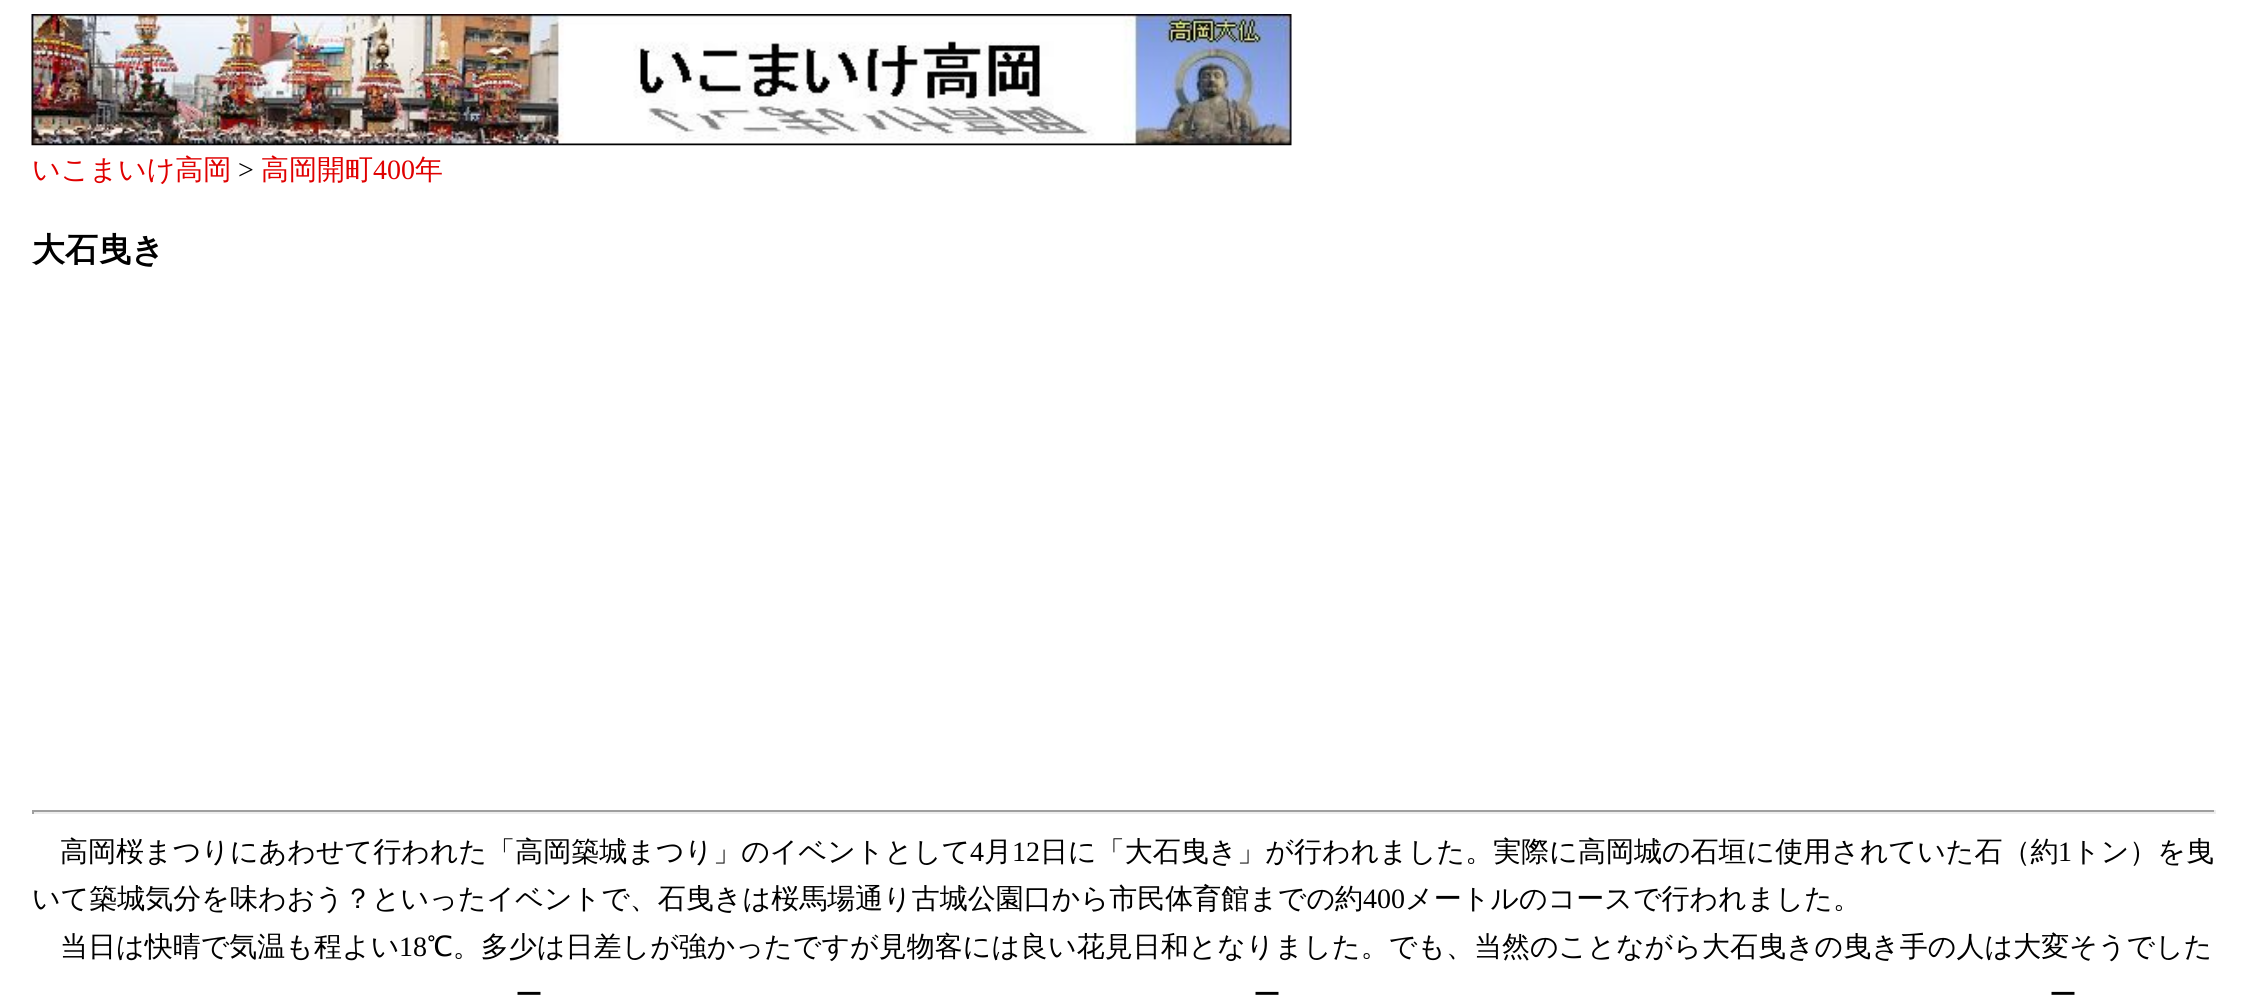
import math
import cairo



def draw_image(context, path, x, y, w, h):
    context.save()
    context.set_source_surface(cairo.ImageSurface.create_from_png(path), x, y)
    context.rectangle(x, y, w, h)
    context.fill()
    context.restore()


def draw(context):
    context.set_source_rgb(1, 1, 1)
    context.paint()
    draw_image(context, "images/1.png", 31, 14, 1261, 132)
    context.set_source_rgb(159 / 255, 159 / 255, 159 / 255)
    context.rectangle(32, 810, 2184, 2)
    context.fill()
    context.set_source_rgb(238 / 255, 238 / 255, 238 / 255)
    context.rectangle(2214, 810, 2, 4)
    context.fill()
    context.rectangle(32, 812, 2184, 2)
    context.fill()
    context.set_source_rgb(159 / 255, 159 / 255, 159 / 255)
    context.rectangle(32, 810, 2, 4)
    context.fill()
    context.select_font_face("WenQuanYi Zen Hei Medium")
    context.set_font_size(28)
    context.set_source_rgb(224 / 255, 0, 0)
    context.move_to(32, 179)
    context.show_text("いこまいけ高岡")
    context.select_font_face("Liberation Serif")
    context.set_source_rgb(0, 0, 0)
    context.move_to(238, 179)
    context.show_text(">")
    context.select_font_face("WenQuanYi Zen Hei Medium")
    context.set_source_rgb(224 / 255, 0, 0)
    context.move_to(261, 179)
    context.show_text("高岡開町")
    context.select_font_face("Liberation Serif")
    context.move_to(373, 179)
    context.show_text("400")
    context.select_font_face("WenQuanYi Zen Hei Medium")
    context.move_to(415, 179)
    context.show_text("年")
    context.select_font_face("WenQuanYi Zen Hei", cairo.FontSlant.NORMAL, cairo.FontWeight.BOLD)
    context.set_font_size(33)
    context.set_source_rgb(0, 0, 0)
    context.move_to(32, 261)
    context.show_text("大石曳き")
    context.select_font_face("WenQuanYi Zen Hei Medium")
    context.set_font_size(28)
    context.move_to(60, 861)
    context.show_text("高岡桜まつりにあわせて行われた「高岡築城まつり」のイベントとして")
    context.select_font_face("Liberation Serif")
    context.move_to(970, 861)
    context.show_text("4")
    context.select_font_face("WenQuanYi Zen Hei Medium")
    context.move_to(984, 861)
    context.show_text("月")
    context.select_font_face("Liberation Serif")
    context.move_to(1012, 861)
    context.show_text("12")
    context.select_font_face("WenQuanYi Zen Hei Medium")
    context.move_to(1040, 861)
    context.show_text("日に「大石曳き」が行われました。実際に高岡城の石垣に使用されていた石（約")
    context.select_font_face("Liberation Serif")
    context.move_to(2058, 861)
    context.show_text("1")
    context.select_font_face("WenQuanYi Zen Hei Medium")
    context.move_to(2072, 861)
    context.show_text("トン）を曳")
    context.move_to(32, 908)
    context.show_text("いて築城気分を味わおう？といったイベントで、石曳きは桜馬場通り古城公園口から市民体育館までの約")
    context.select_font_face("Liberation Serif")
    context.move_to(1363, 908)
    context.show_text("400")
    context.select_font_face("WenQuanYi Zen Hei Medium")
    context.move_to(1405, 908)
    context.show_text("メートルのコースで行われました。")
    context.move_to(60, 956)
    context.show_text("当日は快晴で気温も程よい")
    context.select_font_face("Liberation Serif")
    context.move_to(399, 956)
    context.show_text("18")
    context.select_font_face("WenQuanYi Zen Hei Medium")
    context.move_to(427, 956)
    context.show_text("℃。多少は日差しが強かったですが見物客には良い花見日和となりました。でも、当然のことながら大石曳きの曳き手の人は大変そうでした")
    context.move_to(515, 1004)
    context.show_text("ー")
    context.move_to(1253, 1004)
    context.show_text("ー")
    context.move_to(2049, 1004)
    context.show_text("ー")


surface = cairo.ImageSurface(cairo.Format.RGB24, 2246, 997)
context = cairo.Context(surface)
options = cairo.FontOptions()
options.set_hint_metrics(cairo.HintMetrics.OFF)
options.set_hint_style(cairo.HintStyle.NONE)
context.set_font_options(options)
context.set_miter_limit(4)
draw(context)
surface.write_to_png("out.png")
